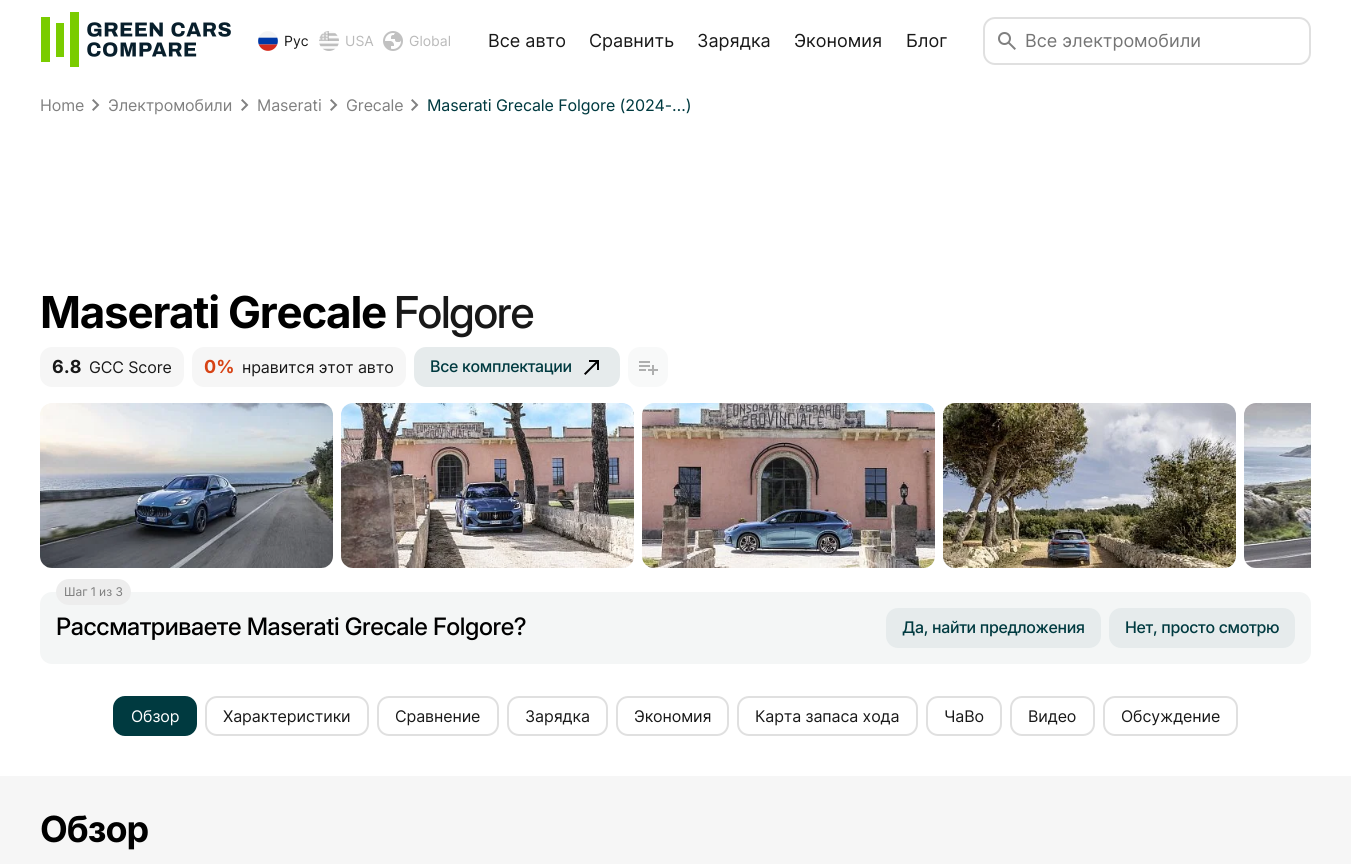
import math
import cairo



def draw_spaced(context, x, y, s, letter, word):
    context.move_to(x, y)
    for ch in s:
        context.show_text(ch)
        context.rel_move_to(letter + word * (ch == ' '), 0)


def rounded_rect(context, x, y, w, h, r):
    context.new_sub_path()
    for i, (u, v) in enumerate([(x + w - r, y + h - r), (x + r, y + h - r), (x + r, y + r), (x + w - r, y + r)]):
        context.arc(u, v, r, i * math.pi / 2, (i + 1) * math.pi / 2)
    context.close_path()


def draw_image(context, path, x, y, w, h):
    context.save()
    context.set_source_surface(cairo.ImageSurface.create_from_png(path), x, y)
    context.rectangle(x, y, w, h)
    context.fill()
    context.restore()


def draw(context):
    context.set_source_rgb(1, 1, 1)
    context.paint()
    draw_image(context, "images/1.png", 41, 12, 190, 55)
    draw_image(context, "images/2.png", 258, 31, 20, 20)
    draw_image(context, "images/3.png", 319, 31, 20, 20)
    draw_image(context, "images/4.png", 383, 31, 20, 20)
    rounded_rect(context, 984, 18, 326, 46, 11)
    context.set_source_rgb(224 / 255, 224 / 255, 224 / 255)
    context.stroke()
    draw_image(context, "images/5.png", 998, 32, 18, 18)
    draw_image(context, "images/6.png", 92, 99, 8, 12)
    draw_image(context, "images/6.png", 241, 99, 8, 12)
    draw_image(context, "images/6.png", 330, 99, 8, 12)
    draw_image(context, "images/6.png", 411, 99, 8, 12)
    context.set_source_rgb(246 / 255, 246 / 255, 246 / 255)
    rounded_rect(context, 40, 347, 144, 40, 12)
    context.fill()
    rounded_rect(context, 192, 347, 214, 40, 12)
    context.fill()
    context.set_source_rgb(230 / 255, 235 / 255, 236 / 255)
    rounded_rect(context, 414, 347, 206, 40, 12)
    context.fill()
    draw_image(context, "images/7.png", 584, 360, 15, 15)
    context.set_source_rgb(248 / 255, 249 / 255, 249 / 255)
    rounded_rect(context, 628, 347, 40, 40, 12)
    context.fill()
    draw_image(context, "images/8.png", 639, 361, 19, 14)
    draw_image(context, "images/9.png", 40, 403, 293, 165)
    draw_image(context, "images/10.png", 341, 403, 293, 165)
    draw_image(context, "images/11.png", 642, 403, 293, 165)
    draw_image(context, "images/12.png", 943, 403, 293, 165)
    draw_image(context, "images/13.png", 1244, 403, 67, 165)
    context.set_source_rgb(244 / 255, 246 / 255, 246 / 255)
    rounded_rect(context, 40, 592, 1271, 72, 12)
    context.fill()
    context.set_source_rgb(237 / 255, 237 / 255, 237 / 255)
    rounded_rect(context, 56, 579, 75, 26, 13)
    context.fill()
    context.set_source_rgb(230 / 255, 235 / 255, 236 / 255)
    rounded_rect(context, 886, 608, 215, 40, 12)
    context.fill()
    rounded_rect(context, 1109, 608, 186, 40, 12)
    context.fill()
    context.set_source_rgb(0, 58 / 255, 64 / 255)
    rounded_rect(context, 114, 697, 82, 38, 11)
    context.fill_preserve()
    context.stroke()
    rounded_rect(context, 206, 697, 162, 38, 11)
    context.set_source_rgb(224 / 255, 224 / 255, 224 / 255)
    context.stroke()
    rounded_rect(context, 378, 697, 120, 38, 11)
    context.stroke()
    rounded_rect(context, 508, 697, 99, 38, 11)
    context.stroke()
    rounded_rect(context, 617, 697, 111, 38, 11)
    context.stroke()
    rounded_rect(context, 738, 697, 179, 38, 11)
    context.stroke()
    rounded_rect(context, 927, 697, 74, 38, 11)
    context.stroke()
    rounded_rect(context, 1011, 697, 83, 38, 11)
    context.stroke()
    rounded_rect(context, 1104, 697, 133, 38, 11)
    context.stroke()
    context.set_source_rgb(246 / 255, 246 / 255, 246 / 255)
    context.rectangle(0, 776, 1351, 88)
    context.fill()
    context.select_font_face("Inter")
    context.set_font_size(14)
    context.set_source_rgb(24 / 255, 24 / 255, 24 / 255)
    context.move_to(284, 46)
    context.show_text("Рус")
    context.set_source_rgb(186 / 255, 186 / 255, 186 / 255)
    context.move_to(345, 46)
    context.show_text("USA")
    context.move_to(409, 46)
    context.show_text("Global")
    context.set_font_size(18)
    context.set_source_rgb(24 / 255, 24 / 255, 24 / 255)
    context.move_to(488, 47)
    context.show_text("Все авто")
    context.move_to(589, 47)
    context.show_text("Сравнить")
    context.move_to(697, 47)
    context.show_text("Зарядка")
    context.move_to(794, 47)
    context.show_text("Экономия")
    context.move_to(906, 47)
    context.show_text("Блог")
    context.set_source_rgb(117 / 255, 117 / 255, 117 / 255)
    context.move_to(1025, 47)
    context.show_text("Все электромобили")
    context.set_font_size(16)
    context.set_source_rgb(128 / 255, 128 / 255, 128 / 255)
    draw_spaced(context, 40, 111, "Home", -0.1, 0)
    draw_spaced(context, 108, 111, "Электромобили", -0.1, 0)
    draw_spaced(context, 257, 111, "Maserati", -0.1, 0)
    draw_spaced(context, 346, 111, "Grecale", -0.1, 0)
    context.select_font_face("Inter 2")
    context.set_source_rgb(0, 58 / 255, 64 / 255)
    draw_spaced(context, 427, 111, "Maserati Grecale Folgore (2024-…)", -0.1, 0)
    context.select_font_face("Inter", cairo.FontSlant.NORMAL, cairo.FontWeight.BOLD)
    context.set_font_size(44)
    context.set_source_rgb(0, 0, 0)
    draw_spaced(context, 40, 328, "Maserati Grecale", -1.25, 0)
    context.select_font_face("Inter Medium")
    context.set_source_rgb(24 / 255, 24 / 255, 24 / 255)
    draw_spaced(context, 394, 328, "Folgore", -1.25, 0)
    context.select_font_face("Inter", cairo.FontSlant.NORMAL, cairo.FontWeight.BOLD)
    context.set_font_size(18)
    context.move_to(52, 373)
    context.show_text("6.8")
    context.select_font_face("Inter")
    context.set_font_size(16)
    draw_spaced(context, 89, 373, "GCC Score", -0.1, 0)
    context.select_font_face("Inter", cairo.FontSlant.NORMAL, cairo.FontWeight.BOLD)
    context.set_font_size(18)
    context.set_source_rgb(215 / 255, 67 / 255, 21 / 255)
    context.move_to(204, 373)
    context.show_text("0%")
    context.select_font_face("Inter")
    context.set_font_size(16)
    context.set_source_rgb(24 / 255, 24 / 255, 24 / 255)
    draw_spaced(context, 242, 373, "нравится этот авто", -0.1, 0)
    context.select_font_face("Inter 2 Medium")
    context.set_source_rgb(0, 58 / 255, 64 / 255)
    draw_spaced(context, 430, 372, "Все комплектации", -0.3, 0)
    context.select_font_face("Inter 2")
    context.set_font_size(12)
    context.set_source_rgb(128 / 255, 128 / 255, 128 / 255)
    context.move_to(64, 596)
    context.show_text("Шаг 1 из 3")
    context.select_font_face("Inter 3 Medium")
    context.set_font_size(24)
    context.set_source_rgb(0, 0, 0)
    draw_spaced(context, 56, 635, "Рассматриваете Maserati Grecale Folgore?", -0.4, 0)
    context.select_font_face("Inter 2 Medium")
    context.set_font_size(16)
    context.set_source_rgb(0, 58 / 255, 64 / 255)
    draw_spaced(context, 902, 633, "Да, найти предложения", -0.3, 0)
    draw_spaced(context, 1125, 633, "Нет, просто смотрю", -0.3, 0)
    context.select_font_face("Inter")
    context.set_source_rgb(1, 1, 1)
    draw_spaced(context, 131, 722, "Обзор", -0.1, 0)
    context.set_source_rgb(24 / 255, 24 / 255, 24 / 255)
    draw_spaced(context, 223, 722, "Характеристики", -0.1, 0)
    draw_spaced(context, 395, 722, "Сравнение", -0.1, 0)
    draw_spaced(context, 525, 722, "Зарядка", -0.1, 0)
    draw_spaced(context, 634, 722, "Экономия", -0.1, 0)
    draw_spaced(context, 755, 722, "Карта запаса хода", -0.1, 0)
    draw_spaced(context, 944, 722, "ЧаВо", -0.1, 0)
    draw_spaced(context, 1028, 722, "Видео", -0.1, 0)
    draw_spaced(context, 1121, 722, "Обсуждение", -0.1, 0)
    context.select_font_face("Inter", cairo.FontSlant.NORMAL, cairo.FontWeight.BOLD)
    context.set_font_size(36)
    context.set_source_rgb(0, 0, 0)
    draw_spaced(context, 40, 842, "Обзор", -1, 0)


surface = cairo.ImageSurface(cairo.Format.RGB24, 1351, 864)
context = cairo.Context(surface)
options = cairo.FontOptions()
options.set_hint_metrics(cairo.HintMetrics.OFF)
options.set_hint_style(cairo.HintStyle.NONE)
context.set_font_options(options)
context.set_miter_limit(4)
draw(context)
surface.write_to_png("out.png")
